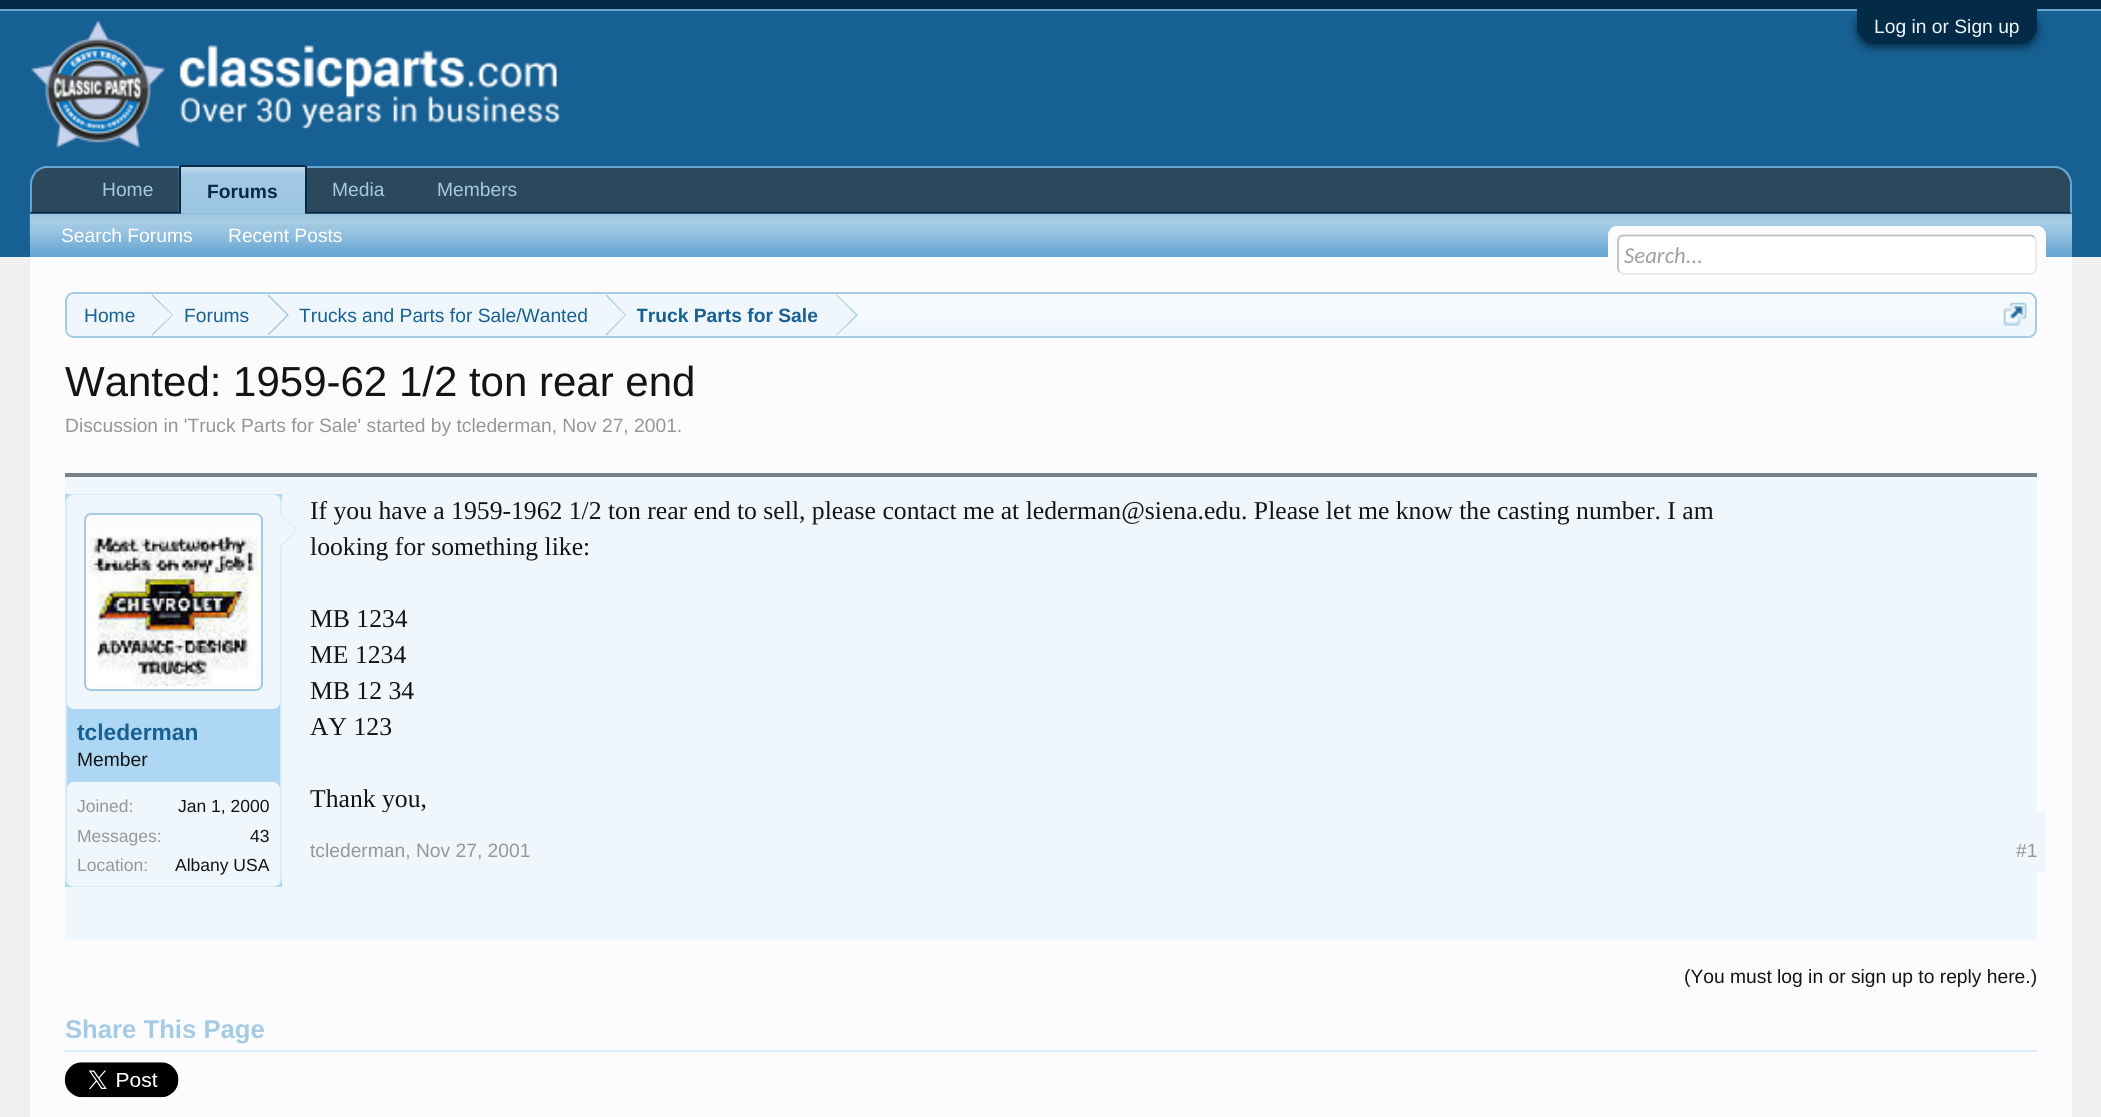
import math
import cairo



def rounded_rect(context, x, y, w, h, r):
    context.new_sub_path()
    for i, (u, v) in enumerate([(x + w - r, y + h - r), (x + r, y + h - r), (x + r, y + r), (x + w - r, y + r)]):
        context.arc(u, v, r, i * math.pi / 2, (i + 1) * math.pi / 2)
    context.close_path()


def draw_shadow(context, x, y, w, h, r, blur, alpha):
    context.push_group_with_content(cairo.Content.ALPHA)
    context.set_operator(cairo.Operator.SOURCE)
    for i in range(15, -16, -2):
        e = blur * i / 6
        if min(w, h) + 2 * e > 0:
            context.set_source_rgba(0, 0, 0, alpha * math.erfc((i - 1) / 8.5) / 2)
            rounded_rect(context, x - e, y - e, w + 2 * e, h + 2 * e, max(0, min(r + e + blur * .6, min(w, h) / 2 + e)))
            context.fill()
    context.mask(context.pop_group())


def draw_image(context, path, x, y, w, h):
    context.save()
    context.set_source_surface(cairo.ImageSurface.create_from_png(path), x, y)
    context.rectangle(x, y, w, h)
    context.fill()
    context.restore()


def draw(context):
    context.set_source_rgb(240 / 255, 240 / 255, 240 / 255)
    context.paint()
    context.set_source_rgb(3 / 255, 42 / 255, 70 / 255)
    context.rectangle(0, 0, 2101, 9)
    context.fill()
    context.set_source_rgb(101 / 255, 165 / 255, 209 / 255)
    context.rectangle(0, 9, 2101, 2)
    context.fill()
    context.set_source_rgb(23 / 255, 96 / 255, 147 / 255)
    context.rectangle(0, 11, 2101, 246)
    context.fill()
    context.set_source_rgb(3 / 255, 42 / 255, 70 / 255)
    draw_shadow(context, 1857, 12, 180, 35, 17.5, 4.5, 1)
    context.set_source_rgb(3 / 255, 42 / 255, 70 / 255)
    context.new_path()
    context.move_to(1857, 9)
    context.line_to(2037, 9)
    context.line_to(2037, 26.5)
    context.curve_to(2037, 36, 2029, 44, 2019.5, 44)
    context.line_to(1874.5, 44)
    context.curve_to(1865, 44, 1857, 36, 1857, 26.5)
    context.close_path()
    context.fill()
    draw_image(context, "images/1.png", 31, 21, 530, 127)
    context.set_source_rgb(43 / 255, 72 / 255, 92 / 255)
    context.new_path()
    context.move_to(48, 166)
    context.line_to(2054, 166)
    context.curve_to(2064, 166, 2072, 174, 2072, 184)
    context.line_to(2072, 214)
    context.line_to(30, 214)
    context.line_to(30, 184)
    context.curve_to(30, 174, 38, 166, 48, 166)
    context.close_path()
    context.fill()
    context.set_source_rgb(101 / 255, 165 / 255, 209 / 255)
    context.new_path()
    context.move_to(47, 168)
    context.curve_to(43, 168, 39, 170, 36, 173)
    context.line_to(35, 171)
    context.curve_to(37, 169, 41, 167, 44, 166)
    context.line_to(2057, 166)
    context.curve_to(2061, 167, 2064, 169, 2067, 171)
    context.line_to(2065, 173)
    context.curve_to(2063, 170, 2059, 168, 2054, 168)
    context.close_path()
    context.fill()
    context.new_path()
    context.move_to(2072, 214)
    context.line_to(2072, 184)
    context.curve_to(2072, 179, 2070, 175, 2067, 171)
    context.line_to(2065, 173)
    context.curve_to(2068, 176, 2070, 180, 2070, 184)
    context.line_to(2070, 212)
    context.close_path()
    context.fill()
    context.set_source_rgb(3 / 255, 42 / 255, 70 / 255)
    context.new_path()
    context.move_to(2072, 214)
    context.line_to(30, 214)
    context.line_to(32, 211)
    context.line_to(32, 212)
    context.line_to(2070, 212)
    context.close_path()
    context.fill()
    context.set_source_rgb(101 / 255, 165 / 255, 209 / 255)
    context.new_path()
    context.move_to(30, 213)
    context.line_to(30, 184)
    context.curve_to(30, 179, 32, 175, 35, 171)
    context.line_to(36, 173)
    context.curve_to(34, 176, 32, 180, 32, 184)
    context.line_to(32, 211)
    context.close_path()
    context.fill()
    context.new_path()
    context.move_to(183, 165)
    context.line_to(302, 165)
    context.curve_to(304, 165, 306, 167, 306, 169)
    context.line_to(306, 214)
    context.line_to(179, 214)
    context.line_to(179, 169)
    context.curve_to(179, 167, 181, 165, 183, 165)
    context.close_path()
    context.fill()
    draw_image(context, "images/2.png", 178, 166, 127, 48)
    context.set_source_rgb(3 / 255, 42 / 255, 70 / 255)
    context.rectangle(180, 165, 125, 2)
    context.fill()
    context.rectangle(305, 166, 2, 48)
    context.fill()
    context.rectangle(179, 166, 2, 48)
    context.fill()
    context.set_source_rgb(101 / 255, 165 / 255, 209 / 255)
    context.rectangle(30, 214, 2042, 43)
    context.fill()
    draw_image(context, "images/3.png", 29, 213, 2043, 42)
    context.set_source_rgb(252 / 255, 252 / 255, 1)
    context.rectangle(30, 257, 2042, 860)
    context.fill()
    rounded_rect(context, 1608, 226, 438, 49, 9)
    context.fill()
    context.set_source_rgb(1, 1, 1)
    rounded_rect(context, 1617, 235, 420, 40, 7)
    context.fill()
    context.new_path()
    context.move_to(2034.5, 237)
    context.curve_to(2035.5, 238.5, 2036, 240, 2036, 241.5)
    context.line_to(2036, 268)
    context.curve_to(2036, 269.5, 2035.5, 271, 2034.5, 272)
    context.curve_to(2033, 273, 2031.5, 274, 2030, 274)
    context.line_to(1624, 274)
    context.curve_to(1622.5, 274, 1621, 273, 1619.5, 272)
    context.set_source_rgb(233 / 255, 233 / 255, 233 / 255)
    context.set_line_width(1.8)
    context.stroke()
    context.new_path()
    context.move_to(1619.5, 272)
    context.curve_to(1618.5, 271, 1618, 269.5, 1618, 268)
    context.line_to(1618, 241.5)
    context.curve_to(1618, 240, 1618.5, 238.5, 1619.5, 237)
    context.curve_to(1621, 236, 1622.5, 235.5, 1624, 235.5)
    context.line_to(2030, 235.5)
    context.curve_to(2031.5, 235.5, 2033, 236, 2034.5, 237)
    context.set_source_rgb(192 / 255, 192 / 255, 192 / 255)
    context.stroke()
    context.set_source_rgb(240 / 255, 247 / 255, 252 / 255)
    rounded_rect(context, 65, 292, 1972, 46, 9)
    context.fill()
    draw_image(context, "images/4.png", 65, 294, 1972, 27)
    rounded_rect(context, 66, 293, 1970, 44, 8)
    context.set_source_rgb(165 / 255, 202 / 255, 228 / 255)
    context.set_line_width(2)
    context.stroke()
    context.save()
    rounded_rect(context, 67, 294, 1968, 42, 7)
    context.clip()
    context.set_source_rgb(240 / 255, 247 / 255, 252 / 255)
    context.new_path()
    context.move_to(76, 294)
    context.line_to(152, 294)
    context.line_to(152, 338)
    context.line_to(76, 338)
    context.curve_to(71, 338, 67, 334, 67, 329)
    context.line_to(67, 303)
    context.curve_to(67, 298, 71, 294, 76, 294)
    context.close_path()
    context.fill()
    context.restore()
    context.set_source_rgb(240 / 255, 247 / 255, 252 / 255)
    context.rectangle(152, 294, 685, 27)
    context.fill()
    context.set_source_rgb(165 / 255, 202 / 255, 228 / 255)
    context.new_path()
    context.move_to(152, 336)
    context.line_to(152, 294)
    context.line_to(173, 315)
    context.close_path()
    context.fill()
    context.set_source_rgb(240 / 255, 247 / 255, 252 / 255)
    context.new_path()
    context.move_to(150, 336)
    context.line_to(150, 294)
    context.line_to(172, 315)
    context.close_path()
    context.fill()
    context.set_source_rgb(165 / 255, 202 / 255, 228 / 255)
    context.new_path()
    context.move_to(268, 336)
    context.line_to(268, 294)
    context.line_to(289, 315)
    context.close_path()
    context.fill()
    context.set_source_rgb(240 / 255, 247 / 255, 252 / 255)
    context.new_path()
    context.move_to(266, 336)
    context.line_to(266, 294)
    context.line_to(287, 315)
    context.close_path()
    context.fill()
    context.set_source_rgb(165 / 255, 202 / 255, 228 / 255)
    context.new_path()
    context.move_to(606, 336)
    context.line_to(606, 294)
    context.line_to(626, 315)
    context.close_path()
    context.fill()
    context.set_source_rgb(240 / 255, 247 / 255, 252 / 255)
    context.new_path()
    context.move_to(604, 336)
    context.line_to(604, 294)
    context.line_to(625, 315)
    context.close_path()
    context.fill()
    context.set_source_rgb(165 / 255, 202 / 255, 228 / 255)
    context.new_path()
    context.move_to(836, 336)
    context.line_to(836, 294)
    context.line_to(858, 315)
    context.close_path()
    context.fill()
    context.set_source_rgb(240 / 255, 247 / 255, 252 / 255)
    context.new_path()
    context.move_to(835, 336)
    context.line_to(835, 294)
    context.line_to(856, 315)
    context.close_path()
    context.fill()
    draw_image(context, "images/5.png", 2003, 302, 24, 24)
    context.rectangle(65, 477, 1972, 463)
    context.fill()
    context.set_source_rgb(121 / 255, 130 / 255, 137 / 255)
    context.rectangle(65, 473, 1972, 4)
    context.fill()
    context.set_source_rgb(174 / 255, 215 / 255, 243 / 255)
    context.rectangle(65, 494, 217, 393)
    context.fill()
    draw_image(context, "images/6.png", 65, 878, 217, 8)
    rounded_rect(context, 66, 495, 215, 391, 8)
    context.set_source_rgb(215 / 255, 237 / 255, 252 / 255)
    context.stroke()
    context.set_source_rgb(240 / 255, 247 / 255, 252 / 255)
    rounded_rect(context, 67, 495, 213, 214, 7)
    context.fill()
    context.set_source_rgb(252 / 255, 252 / 255, 1)
    rounded_rect(context, 85, 514, 177, 176, 6)
    context.fill_preserve()
    context.set_source_rgb(165 / 255, 202 / 255, 228 / 255)
    context.stroke()
    draw_image(context, "images/7.png", 89, 532, 168, 154)
    context.set_source_rgb(215 / 255, 237 / 255, 252 / 255)
    context.new_path()
    context.move_to(280, 548)
    context.line_to(280, 513)
    context.line_to(297.5, 530)
    context.close_path()
    context.fill()
    context.set_source_rgb(240 / 255, 247 / 255, 252 / 255)
    context.new_path()
    context.move_to(278, 548)
    context.line_to(278, 513)
    context.line_to(296, 530)
    context.close_path()
    context.fill()
    rounded_rect(context, 67, 782, 213, 104, 7)
    context.fill()
    context.set_source_rgb(215 / 255, 237 / 255, 252 / 255)
    context.rectangle(65, 1050, 1972, 2)
    context.fill()
    draw_image(context, "images/8.png", 64, 1062, 115, 36)
    context.select_font_face("Liberation Sans")
    context.set_font_size(19.25)
    context.set_source_rgb(240 / 255, 247 / 255, 252 / 255)
    context.move_to(1874, 33)
    context.show_text("Log in or Sign up")
    context.set_source_rgb(165 / 255, 202 / 255, 228 / 255)
    context.move_to(102, 196)
    context.show_text("Home")
    context.move_to(332, 196)
    context.show_text("Media")
    context.move_to(437, 196)
    context.show_text("Members")
    context.select_font_face("Liberation Sans", cairo.FontSlant.NORMAL, cairo.FontWeight.BOLD)
    context.set_source_rgb(3 / 255, 42 / 255, 70 / 255)
    context.move_to(207, 198)
    context.show_text("Forums")
    context.select_font_face("Liberation Sans")
    context.set_source_rgb(1, 1, 1)
    context.move_to(61, 242)
    context.show_text("Search Forums")
    context.move_to(228, 242)
    context.show_text("Recent Posts")
    context.select_font_face("Carlito", cairo.FontSlant.ITALIC)
    context.set_font_size(22.75)
    context.set_source_rgb(160 / 255, 160 / 255, 160 / 255)
    context.move_to(1624, 263)
    context.show_text("Search...")
    context.select_font_face("Liberation Sans")
    context.set_font_size(19.25)
    context.set_source_rgb(23 / 255, 96 / 255, 147 / 255)
    context.move_to(84, 322)
    context.show_text("Home")
    context.move_to(184, 322)
    context.show_text("Forums")
    context.move_to(299, 322)
    context.show_text("Trucks and Parts for Sale/Wanted")
    context.save()
    context.rectangle(637, 294, 182, 42)
    context.clip()
    context.select_font_face("Liberation Sans", cairo.FontSlant.NORMAL, cairo.FontWeight.BOLD)
    context.move_to(636, 322)
    context.show_text("Truck Parts for Sale")
    context.restore()
    context.set_font_size(42)
    context.set_source_rgb(20 / 255, 20 / 255, 20 / 255)
    context.move_to(65, 396)
    context.show_text("Wanted: 1959-62 1/2 ton rear end")
    context.set_font_size(19.25)
    context.set_source_rgb(150 / 255, 150 / 255, 150 / 255)
    context.move_to(65, 432)
    context.show_text("Discussion in 'Truck Parts for Sale' started by tclederman, Nov 27, 2001.")
    context.select_font_face("Liberation Sans", cairo.FontSlant.NORMAL, cairo.FontWeight.BOLD)
    context.set_font_size(22.75)
    context.set_source_rgb(23 / 255, 96 / 255, 147 / 255)
    context.move_to(77, 740)
    context.show_text("tclederman")
    context.select_font_face("Liberation Sans")
    context.set_font_size(19.25)
    context.set_source_rgb(20 / 255, 20 / 255, 20 / 255)
    context.move_to(77, 766)
    context.show_text("Member")
    context.set_font_size(17.5)
    context.set_source_rgb(150 / 255, 150 / 255, 150 / 255)
    context.move_to(77, 812)
    context.show_text("Joined:")
    context.set_source_rgb(20 / 255, 20 / 255, 20 / 255)
    context.move_to(178, 812)
    context.show_text("Jan 1, 2000")
    context.set_source_rgb(150 / 255, 150 / 255, 150 / 255)
    context.move_to(77, 842)
    context.show_text("Messages:")
    context.set_source_rgb(20 / 255, 20 / 255, 20 / 255)
    context.move_to(250, 842)
    context.show_text("43")
    context.set_source_rgb(150 / 255, 150 / 255, 150 / 255)
    context.move_to(77, 871)
    context.show_text("Location:")
    context.set_source_rgb(20 / 255, 20 / 255, 20 / 255)
    context.move_to(175, 871)
    context.show_text("Albany USA")
    context.select_font_face("Liberation Serif")
    context.set_font_size(25.67)
    context.move_to(310, 519)
    context.show_text("If you have a 1959-1962 1/2 ton rear end to sell, please contact me at lederman@siena.edu. Please let me know the casting number. I am")
    context.move_to(310, 555)
    context.show_text("looking for something like:")
    context.move_to(310, 627)
    context.show_text("MB 1234")
    context.move_to(310, 663)
    context.show_text("ME 1234")
    context.move_to(310, 699)
    context.show_text("MB 12 34")
    context.move_to(310, 735)
    context.show_text("AY 123")
    context.move_to(310, 807)
    context.show_text("Thank you,")
    context.set_source_rgb(240 / 255, 247 / 255, 252 / 255)
    context.rectangle(382, 812, 1664, 60)
    context.fill()
    context.select_font_face("Liberation Sans")
    context.set_font_size(19.25)
    context.set_source_rgb(150 / 255, 150 / 255, 150 / 255)
    context.move_to(310, 857)
    context.show_text("tclederman, Nov 27, 2001")
    context.move_to(2016, 857)
    context.show_text("#1")
    context.set_source_rgb(20 / 255, 20 / 255, 20 / 255)
    context.move_to(1684, 983)
    context.show_text("(You must log in or sign up to reply here.)")
    context.select_font_face("Liberation Sans", cairo.FontSlant.NORMAL, cairo.FontWeight.BOLD)
    context.set_font_size(25.67)
    context.set_source_rgb(165 / 255, 202 / 255, 228 / 255)
    context.move_to(65, 1038)
    context.show_text("Share This Page")


surface = cairo.ImageSurface(cairo.Format.RGB24, 2101, 1117)
context = cairo.Context(surface)
options = cairo.FontOptions()
options.set_hint_metrics(cairo.HintMetrics.OFF)
options.set_hint_style(cairo.HintStyle.NONE)
context.set_font_options(options)
context.set_miter_limit(4)
draw(context)
surface.write_to_png("out.png")
